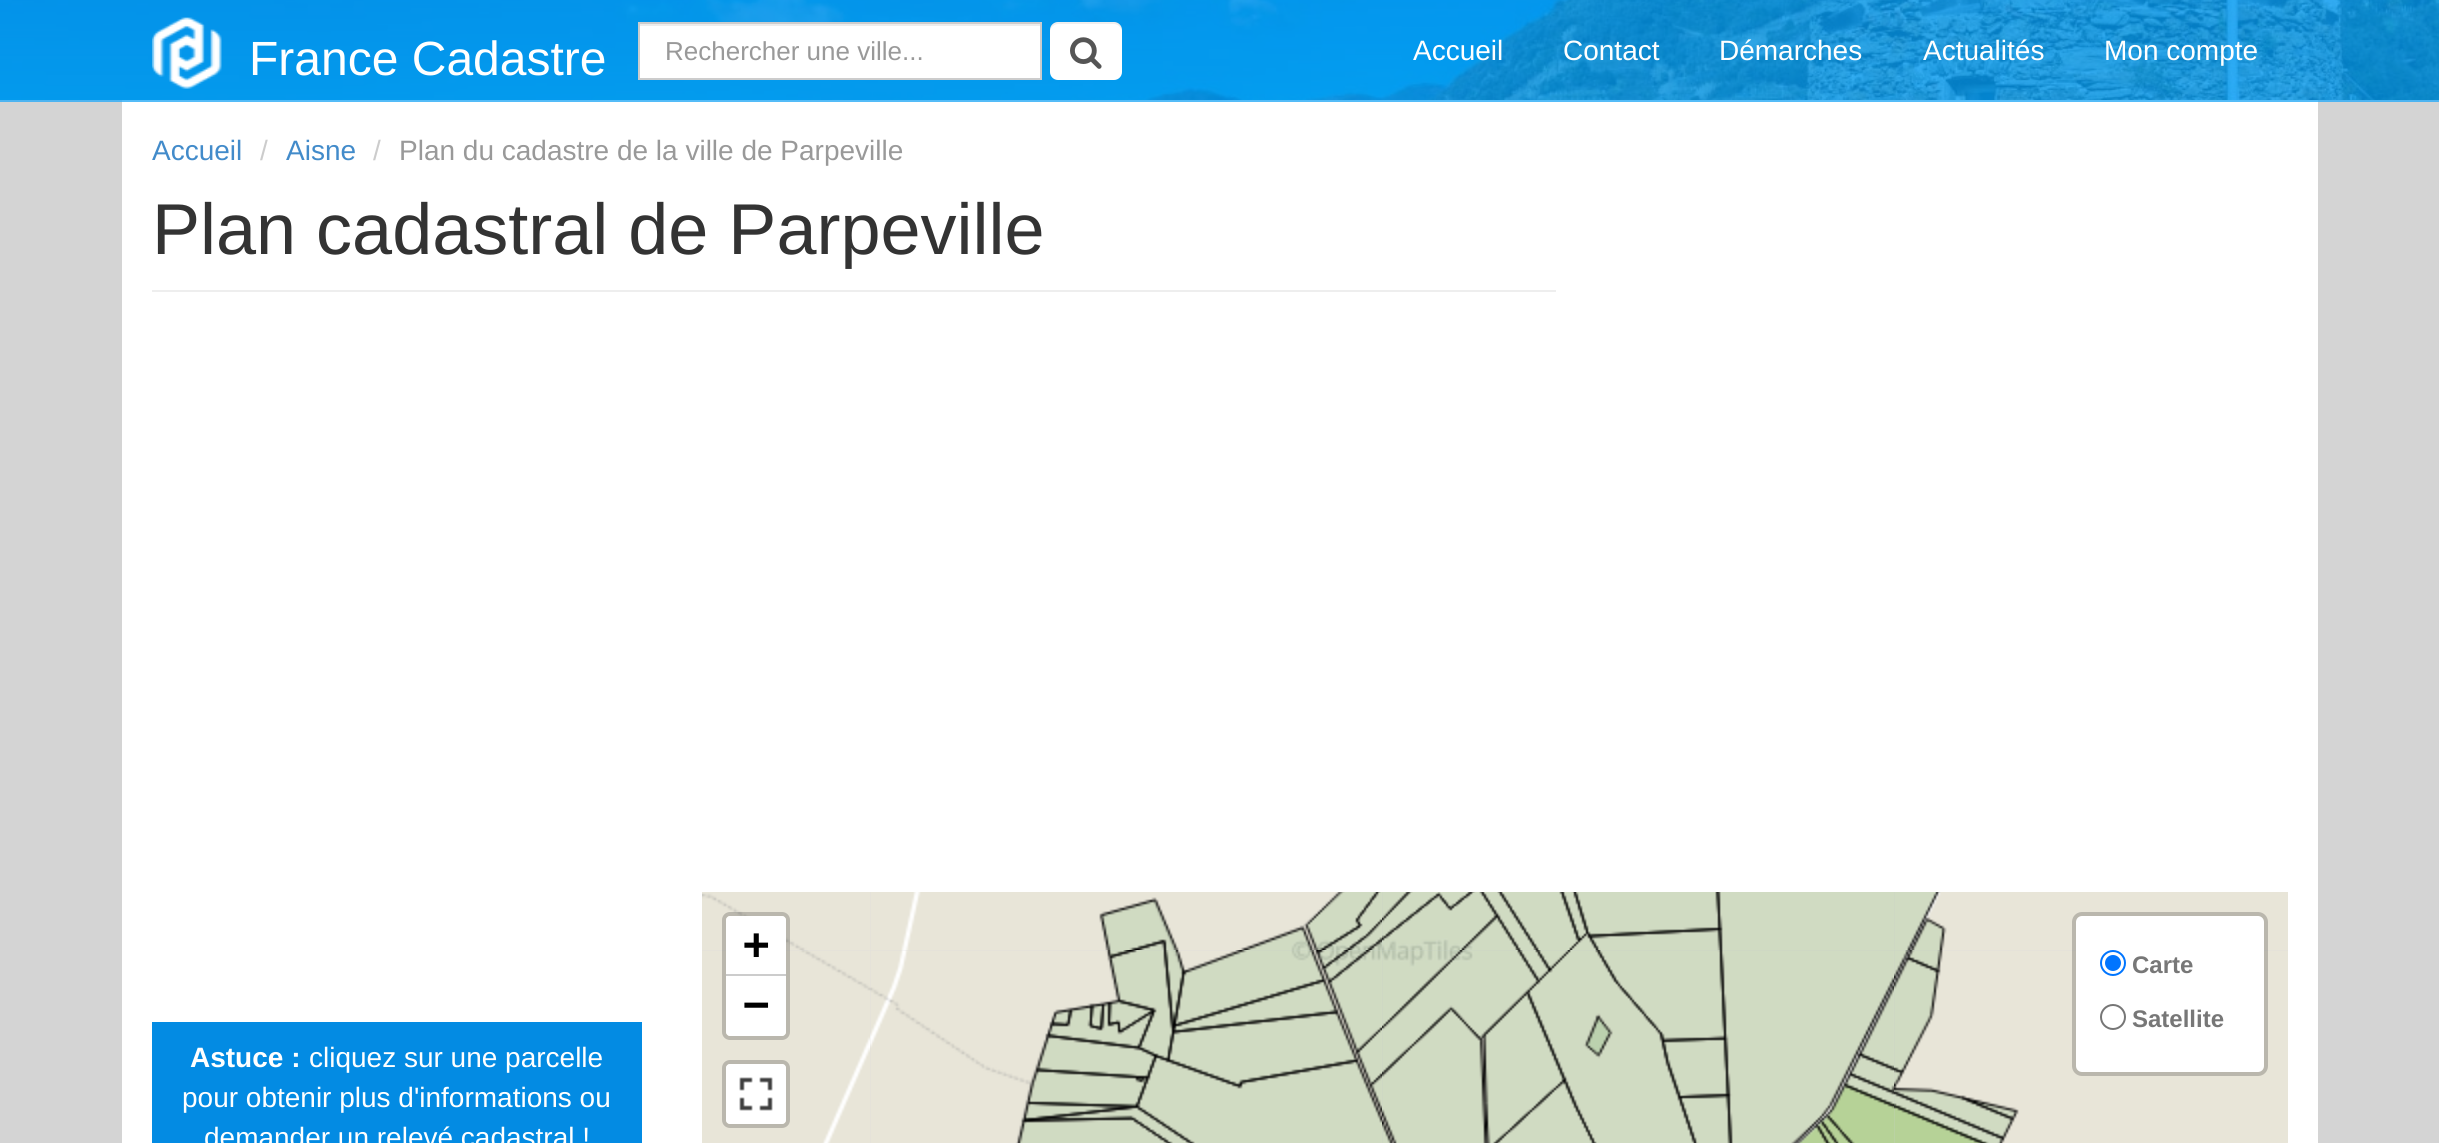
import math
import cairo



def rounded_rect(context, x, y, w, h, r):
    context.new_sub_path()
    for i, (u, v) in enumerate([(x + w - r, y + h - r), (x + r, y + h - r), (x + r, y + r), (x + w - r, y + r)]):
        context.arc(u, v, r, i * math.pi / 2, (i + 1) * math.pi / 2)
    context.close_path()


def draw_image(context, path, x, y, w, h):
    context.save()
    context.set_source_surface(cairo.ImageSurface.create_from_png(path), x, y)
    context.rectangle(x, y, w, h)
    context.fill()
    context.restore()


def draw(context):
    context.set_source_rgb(212 / 255, 212 / 255, 212 / 255)
    context.paint()
    context.set_source_rgb(77 / 255, 180 / 255, 241 / 255)
    context.rectangle(0, 100, 2439, 2)
    context.fill()
    draw_image(context, "images/1.png", 0, 0, 2439, 100)
    draw_image(context, "images/2.png", 152, 17, 70, 72)
    context.set_source_rgb(1, 1, 1)
    context.rectangle(640, 26, 400, 52)
    context.fill()
    context.set_source_rgb(236 / 255, 236 / 255, 236 / 255)
    context.rectangle(640, 24, 400, 2)
    context.fill()
    context.rectangle(639, 23, 402, 56)
    context.set_source_rgb(204 / 255, 204 / 255, 204 / 255)
    context.stroke()
    context.set_source_rgb(1, 1, 1)
    rounded_rect(context, 1050, 22, 72, 58, 8)
    context.fill()
    context.set_source_rgba(0, 0, 0, 0.07)
    context.new_path()
    context.move_to(1058, 24)
    context.line_to(1114, 24)
    context.curve_to(1118, 24, 1122, 28, 1122, 32)
    context.curve_to(1122, 20, 1114, 22, 1105, 22)
    context.line_to(1067, 22)
    context.curve_to(1058, 22, 1050, 20, 1050, 32)
    context.curve_to(1050, 28, 1054, 24, 1058, 24)
    context.close_path()
    context.fill()
    draw_image(context, "images/3.png", 1070, 37, 32, 32)
    context.set_source_rgb(1, 1, 1)
    context.rectangle(122, 102, 2196, 1041)
    context.fill()
    context.set_source_rgb(84 / 255, 188 / 255, 248 / 255)
    context.rectangle(122, 100, 2196, 2)
    context.fill()
    context.set_source_rgb(238 / 255, 238 / 255, 238 / 255)
    context.rectangle(152, 290, 1404, 2)
    context.fill()
    context.set_source_rgb(221 / 255, 221 / 255, 221 / 255)
    context.rectangle(702, 892, 1586, 251)
    context.fill()
    draw_image(context, "images/9.png", 869, 949, 513, 194)
    draw_image(context, "images/4.png", 702, 892, 168, 58)
    draw_image(context, "images/10.png", 1381, 949, 513, 194)
    draw_image(context, "images/5.png", 870, 892, 512, 58)
    draw_image(context, "images/6.png", 1381, 892, 513, 58)
    draw_image(context, "images/11.png", 1893, 949, 395, 194)
    draw_image(context, "images/7.png", 1894, 892, 394, 58)
    draw_image(context, "images/8.png", 702, 950, 168, 193)
    draw_image(context, "images/12.png", 1099, 892, 283, 58)
    draw_image(context, "images/13.png", 1382, 892, 512, 58)
    draw_image(context, "images/14.png", 1894, 892, 53, 58)
    draw_image(context, "images/15.png", 1016, 950, 366, 193)
    draw_image(context, "images/16.png", 1382, 950, 512, 193)
    draw_image(context, "images/17.png", 1894, 950, 125, 193)
    rounded_rect(context, 724, 914, 64, 124, 6)
    context.set_source_rgba(0, 0, 0, 0.2)
    context.set_line_width(4)
    context.stroke()
    context.set_source_rgb(1, 1, 1)
    context.new_path()
    context.move_to(730, 916)
    context.line_to(782, 916)
    context.curve_to(784, 916, 786, 918, 786, 920)
    context.line_to(786, 976)
    context.line_to(726, 976)
    context.line_to(726, 920)
    context.curve_to(726, 918, 728, 916, 730, 916)
    context.close_path()
    context.fill()
    context.set_source_rgb(204 / 255, 204 / 255, 204 / 255)
    context.rectangle(726, 974, 60, 2)
    context.fill()
    context.set_source_rgb(1, 1, 1)
    context.new_path()
    context.move_to(726, 976)
    context.line_to(786, 976)
    context.line_to(786, 1032)
    context.curve_to(786, 1034, 784, 1036, 782, 1036)
    context.line_to(730, 1036)
    context.curve_to(728, 1036, 726, 1034, 726, 1032)
    context.close_path()
    context.fill()
    rounded_rect(context, 724, 1062, 64, 64, 6)
    context.set_source_rgb(186 / 255, 183 / 255, 173 / 255)
    context.stroke()
    context.set_source_rgb(1, 1, 1)
    rounded_rect(context, 726, 1064, 60, 60, 4)
    context.fill()
    draw_image(context, "images/18.png", 739, 1077, 34, 34)
    rounded_rect(context, 2076, 916, 188, 156, 6)
    context.fill()
    rounded_rect(context, 2074, 914, 192, 160, 8)
    context.set_source_rgba(0, 0, 0, 0.2)
    context.stroke()
    context.arc(2113, 963, 12, 0, 2 * math.pi)
    context.set_source_rgb(0, 117 / 255, 1)
    context.set_line_width(2)
    context.stroke()
    context.arc(2113, 963, 8, 0, 2 * math.pi)
    context.fill()
    context.arc(2113, 1017, 12, 0, 2 * math.pi)
    context.set_source_rgb(118 / 255, 118 / 255, 118 / 255)
    context.stroke()
    context.set_source_rgb(3 / 255, 139 / 255, 227 / 255)
    context.rectangle(152, 1022, 490, 121)
    context.fill()
    context.select_font_face("Liberation Sans")
    context.set_font_size(48)
    context.set_source_rgb(1, 1, 1)
    context.move_to(249, 75)
    context.show_text("France Cadastre")
    context.set_font_size(26)
    context.set_source_rgb(153 / 255, 153 / 255, 153 / 255)
    context.move_to(665, 60)
    context.show_text("Rechercher une ville...")
    context.set_font_size(28)
    context.set_source_rgb(1, 1, 1)
    context.move_to(1413, 60)
    context.show_text("Accueil")
    context.move_to(1563, 60)
    context.show_text("Contact")
    context.move_to(1719, 60)
    context.show_text("Démarches")
    context.move_to(1923, 60)
    context.show_text("Actualités")
    context.move_to(2104, 60)
    context.show_text("Mon compte")
    context.set_source_rgb(66 / 255, 139 / 255, 202 / 255)
    context.move_to(152, 160)
    context.show_text("Accueil")
    context.set_source_rgb(204 / 255, 204 / 255, 204 / 255)
    context.move_to(260, 160)
    context.show_text("/")
    context.set_source_rgb(66 / 255, 139 / 255, 202 / 255)
    context.move_to(286, 160)
    context.show_text("Aisne")
    context.set_source_rgb(204 / 255, 204 / 255, 204 / 255)
    context.move_to(373, 160)
    context.show_text("/")
    context.set_source_rgb(153 / 255, 153 / 255, 153 / 255)
    context.move_to(399, 160)
    context.show_text("Plan du cadastre de la ville de Parpeville")
    context.set_font_size(72)
    context.set_source_rgb(51 / 255, 51 / 255, 51 / 255)
    context.move_to(152, 254)
    context.show_text("Plan cadastral de Parpeville")
    context.select_font_face("DejaVu Sans Mono", cairo.FontSlant.NORMAL, cairo.FontWeight.BOLD)
    context.set_font_size(44)
    context.set_source_rgb(0, 0, 0)
    context.move_to(743, 959)
    context.show_text("+")
    context.move_to(743, 1019)
    context.show_text("−")
    context.select_font_face("Liberation Sans", cairo.FontSlant.NORMAL, cairo.FontWeight.BOLD)
    context.set_font_size(24)
    context.set_source_rgb(119 / 255, 119 / 255, 119 / 255)
    context.move_to(2132, 973)
    context.show_text("Carte")
    context.move_to(2132, 1027)
    context.show_text("Satellite")
    context.set_font_size(28)
    context.set_source_rgb(1, 1, 1)
    context.move_to(190, 1067)
    context.show_text("Astuce :")
    context.select_font_face("Liberation Sans")
    context.move_to(309, 1067)
    context.show_text("cliquez sur une parcelle")
    context.move_to(182, 1107)
    context.show_text("pour obtenir plus d'informations ou")
    context.move_to(204, 1147)
    context.show_text("demander un relevé cadastral !")


surface = cairo.ImageSurface(cairo.Format.RGB24, 2439, 1143)
context = cairo.Context(surface)
options = cairo.FontOptions()
options.set_hint_metrics(cairo.HintMetrics.OFF)
options.set_hint_style(cairo.HintStyle.NONE)
context.set_font_options(options)
context.set_miter_limit(4)
draw(context)
surface.write_to_png("out.png")
